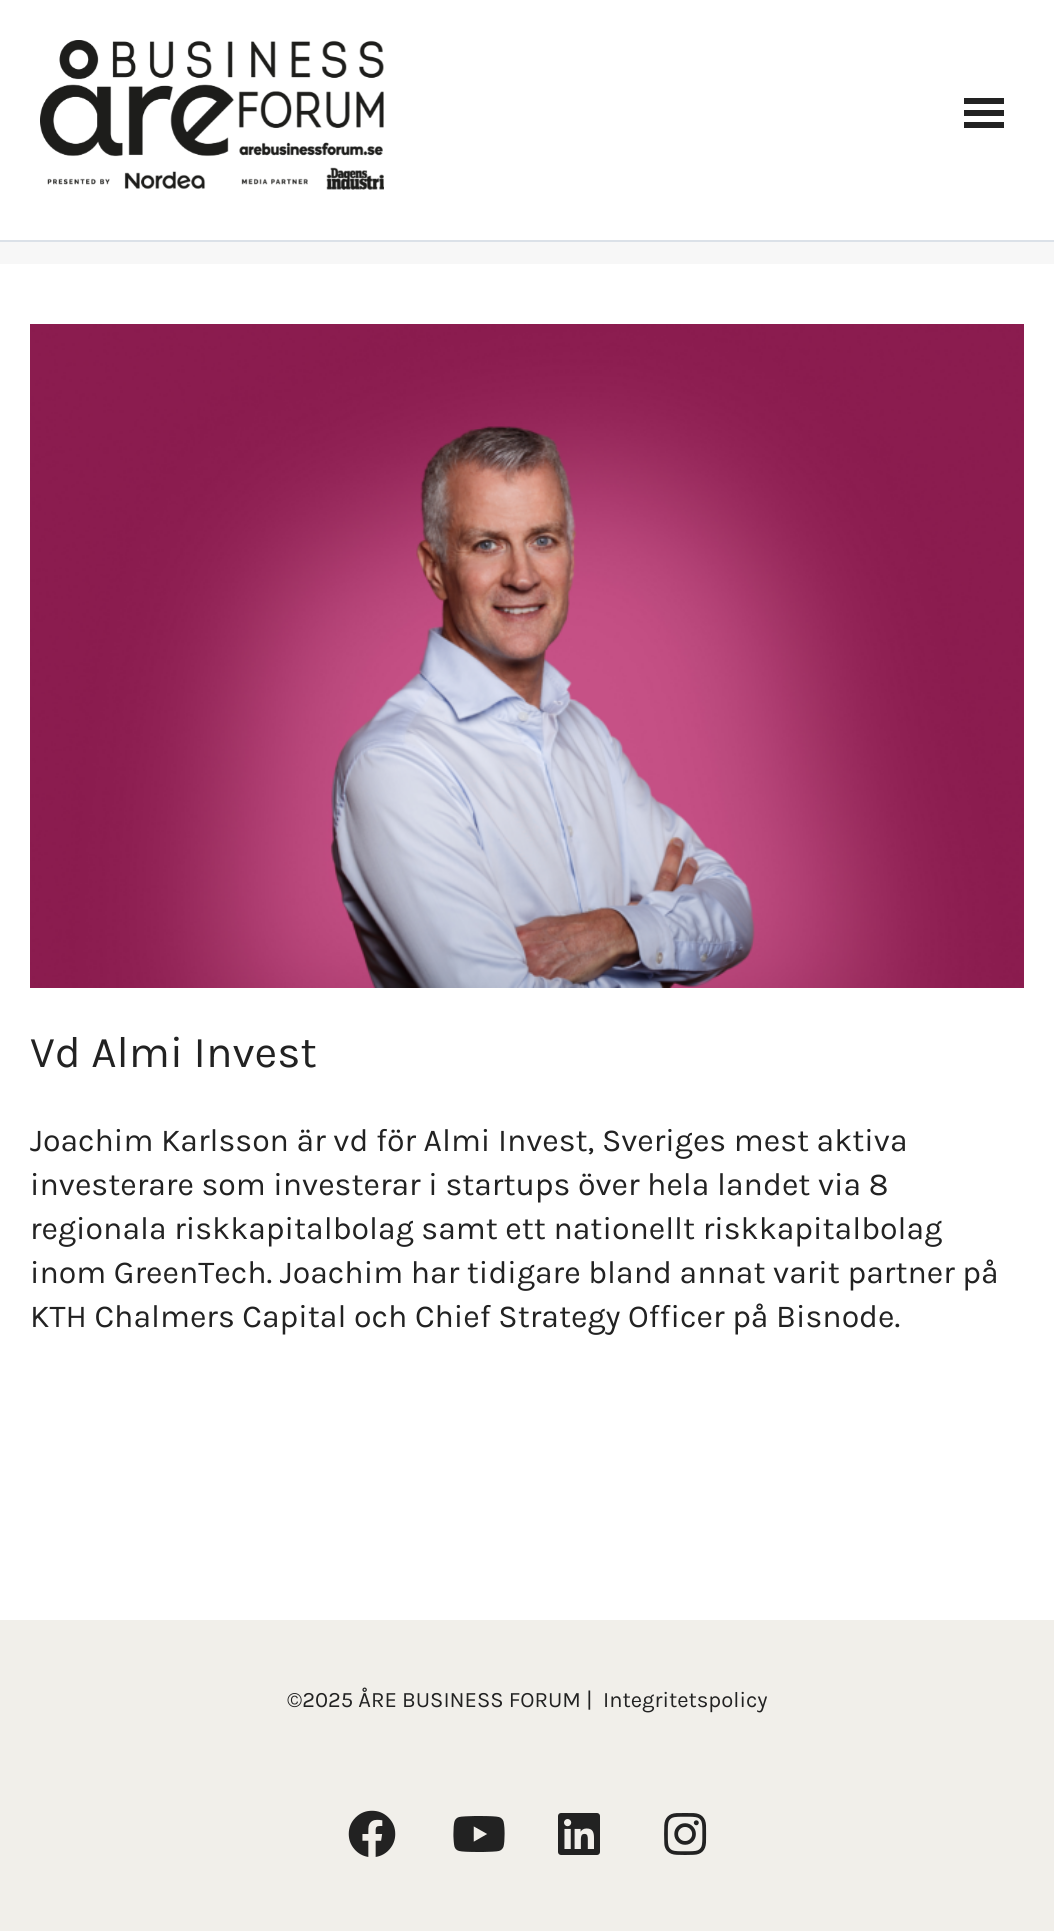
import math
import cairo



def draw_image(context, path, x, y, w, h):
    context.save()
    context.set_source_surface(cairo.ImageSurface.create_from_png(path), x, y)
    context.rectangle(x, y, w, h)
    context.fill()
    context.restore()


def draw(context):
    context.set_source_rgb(241 / 255, 239 / 255, 234 / 255)
    context.paint()
    context.set_source_rgb(1, 1, 1)
    context.rectangle(0, 0, 1054, 240)
    context.fill()
    context.set_source_rgb(219 / 255, 225 / 255, 232 / 255)
    context.rectangle(0, 240, 1054, 2)
    context.fill()
    draw_image(context, "images/1.png", 40, 40, 344, 150)
    context.set_source_rgb(34 / 255, 34 / 255, 34 / 255)
    context.rectangle(964, 110, 40, 6)
    context.fill()
    context.rectangle(964, 98, 40, 6)
    context.fill()
    context.rectangle(964, 122, 40, 6)
    context.fill()
    context.set_source_rgb(1, 1, 1)
    context.rectangle(0, 264, 1054, 1356)
    context.fill()
    context.set_source_rgb(247 / 255, 247 / 255, 247 / 255)
    context.rectangle(0, 242, 1054, 22)
    context.fill()
    draw_image(context, "images/2.png", 30, 324, 994, 664)
    draw_image(context, "images/3.png", 348, 1810, 48, 47)
    draw_image(context, "images/4.png", 453, 1816, 52, 36)
    draw_image(context, "images/5.png", 558, 1813, 42, 42)
    draw_image(context, "images/6.png", 664, 1813, 43, 42)
    context.select_font_face("Karla")
    context.set_font_size(44)
    context.set_source_rgb(34 / 255, 34 / 255, 34 / 255)
    context.move_to(30, 1067)
    context.show_text("Vd Almi Invest")
    context.set_font_size(32)
    context.move_to(30, 1151)
    context.show_text("Joachim Karlsson är vd för Almi Invest, Sveriges mest aktiva")
    context.move_to(30, 1195)
    context.show_text("investerare som investerar i startups över hela landet via 8")
    context.move_to(30, 1239)
    context.show_text("regionala riskkapitalbolag samt ett nationellt riskkapitalbolag")
    context.move_to(30, 1283)
    context.show_text("inom GreenTech. Joachim har tidigare bland annat varit partner på")
    context.move_to(30, 1327)
    context.show_text("KTH Chalmers Capital och Chief Strategy Officer på Bisnode.")
    context.set_font_size(22)
    context.move_to(287, 1707)
    context.show_text("©2025 ÅRE BUSINESS FORUM |")
    context.move_to(603, 1707)
    context.show_text("Integritetspolicy")


surface = cairo.ImageSurface(cairo.Format.RGB24, 1054, 1931)
context = cairo.Context(surface)
options = cairo.FontOptions()
options.set_hint_metrics(cairo.HintMetrics.OFF)
options.set_hint_style(cairo.HintStyle.NONE)
context.set_font_options(options)
context.set_miter_limit(4)
draw(context)
surface.write_to_png("out.png")
